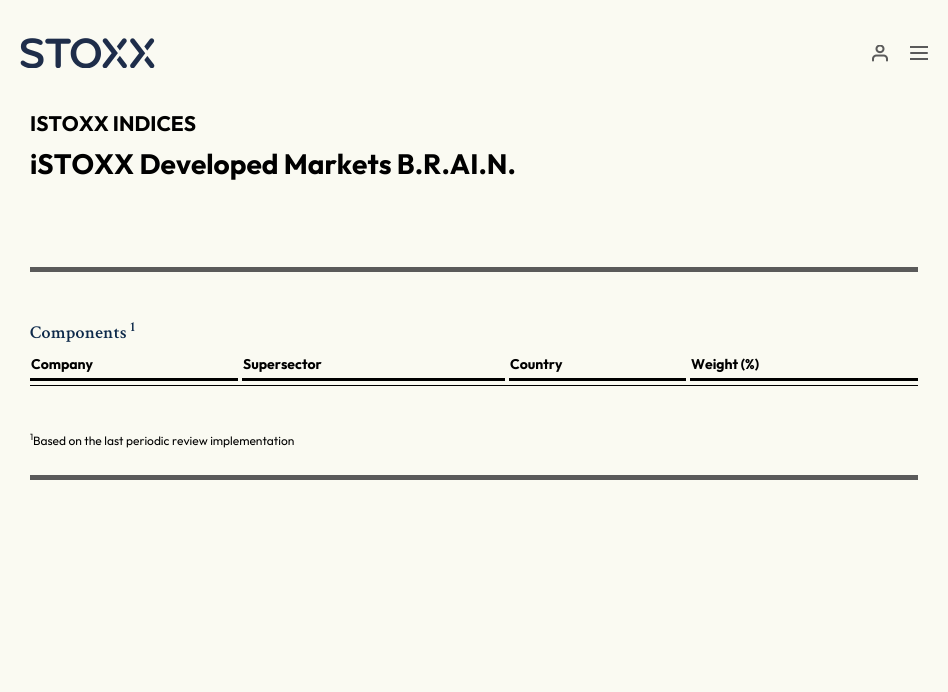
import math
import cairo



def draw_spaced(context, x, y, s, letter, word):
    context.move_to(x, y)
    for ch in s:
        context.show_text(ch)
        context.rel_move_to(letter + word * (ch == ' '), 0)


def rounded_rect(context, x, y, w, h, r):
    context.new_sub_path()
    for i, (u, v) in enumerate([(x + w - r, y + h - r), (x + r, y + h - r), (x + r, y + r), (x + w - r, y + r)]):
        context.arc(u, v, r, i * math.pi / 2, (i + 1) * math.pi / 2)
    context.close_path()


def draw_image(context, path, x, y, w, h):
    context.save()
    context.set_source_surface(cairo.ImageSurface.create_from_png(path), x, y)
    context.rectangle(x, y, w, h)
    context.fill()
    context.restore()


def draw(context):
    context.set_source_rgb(250 / 255, 250 / 255, 242 / 255)
    context.paint()
    draw_image(context, "images/1.png", 20, 38, 135, 30)
    draw_image(context, "images/2.png", 872, 45, 16, 17)
    context.set_source_rgb(90 / 255, 90 / 255, 90 / 255)
    context.rectangle(910, 46, 18, 2)
    context.fill()
    context.rectangle(910, 58, 18, 2)
    context.fill()
    rounded_rect(context, 910, 52, 18, 2, 1)
    context.fill()
    context.rectangle(30, 267, 888, 5)
    context.fill()
    context.set_source_rgb(0, 0, 0)
    context.rectangle(30, 385, 888, 1)
    context.fill()
    context.rectangle(30, 378, 208, 3)
    context.fill()
    context.rectangle(242, 378, 263, 3)
    context.fill()
    context.rectangle(509, 378, 177, 3)
    context.fill()
    context.rectangle(690, 378, 228, 3)
    context.fill()
    context.set_source_rgb(90 / 255, 90 / 255, 90 / 255)
    context.rectangle(30, 475, 888, 5)
    context.fill()
    context.select_font_face("Outfit", cairo.FontSlant.NORMAL, cairo.FontWeight.BOLD)
    context.set_font_size(21)
    context.set_source_rgb(0, 0, 0)
    context.move_to(30, 131)
    context.show_text("ISTOXX INDICES")
    context.set_font_size(28)
    context.move_to(30, 174)
    context.show_text("iSTOXX Developed Markets B.R.AI.N.")
    context.select_font_face("Crimson Text SemiBold")
    context.set_font_size(18)
    context.set_source_rgb(13 / 255, 41 / 255, 74 / 255)
    draw_spaced(context, 30, 338, "Components", 0.25, 0)
    context.set_font_size(14)
    draw_spaced(context, 130, 331, "1", 0.25, 0)
    context.select_font_face("Outfit", cairo.FontSlant.NORMAL, cairo.FontWeight.BOLD)
    context.set_source_rgb(0, 0, 0)
    context.move_to(31, 369)
    context.show_text("Company")
    context.move_to(243, 369)
    context.show_text("Supersector")
    context.move_to(510, 369)
    context.show_text("Country")
    context.move_to(691, 369)
    context.show_text("Weight (%)")
    context.select_font_face("Outfit")
    context.set_font_size(9)
    context.move_to(30, 440)
    context.show_text("1")
    context.set_font_size(12)
    context.move_to(33, 445)
    context.show_text("Based on the last periodic review implementation")


surface = cairo.ImageSurface(cairo.Format.RGB24, 948, 692)
context = cairo.Context(surface)
options = cairo.FontOptions()
options.set_hint_metrics(cairo.HintMetrics.OFF)
options.set_hint_style(cairo.HintStyle.NONE)
context.set_font_options(options)
context.set_miter_limit(4)
draw(context)
surface.write_to_png("out.png")
